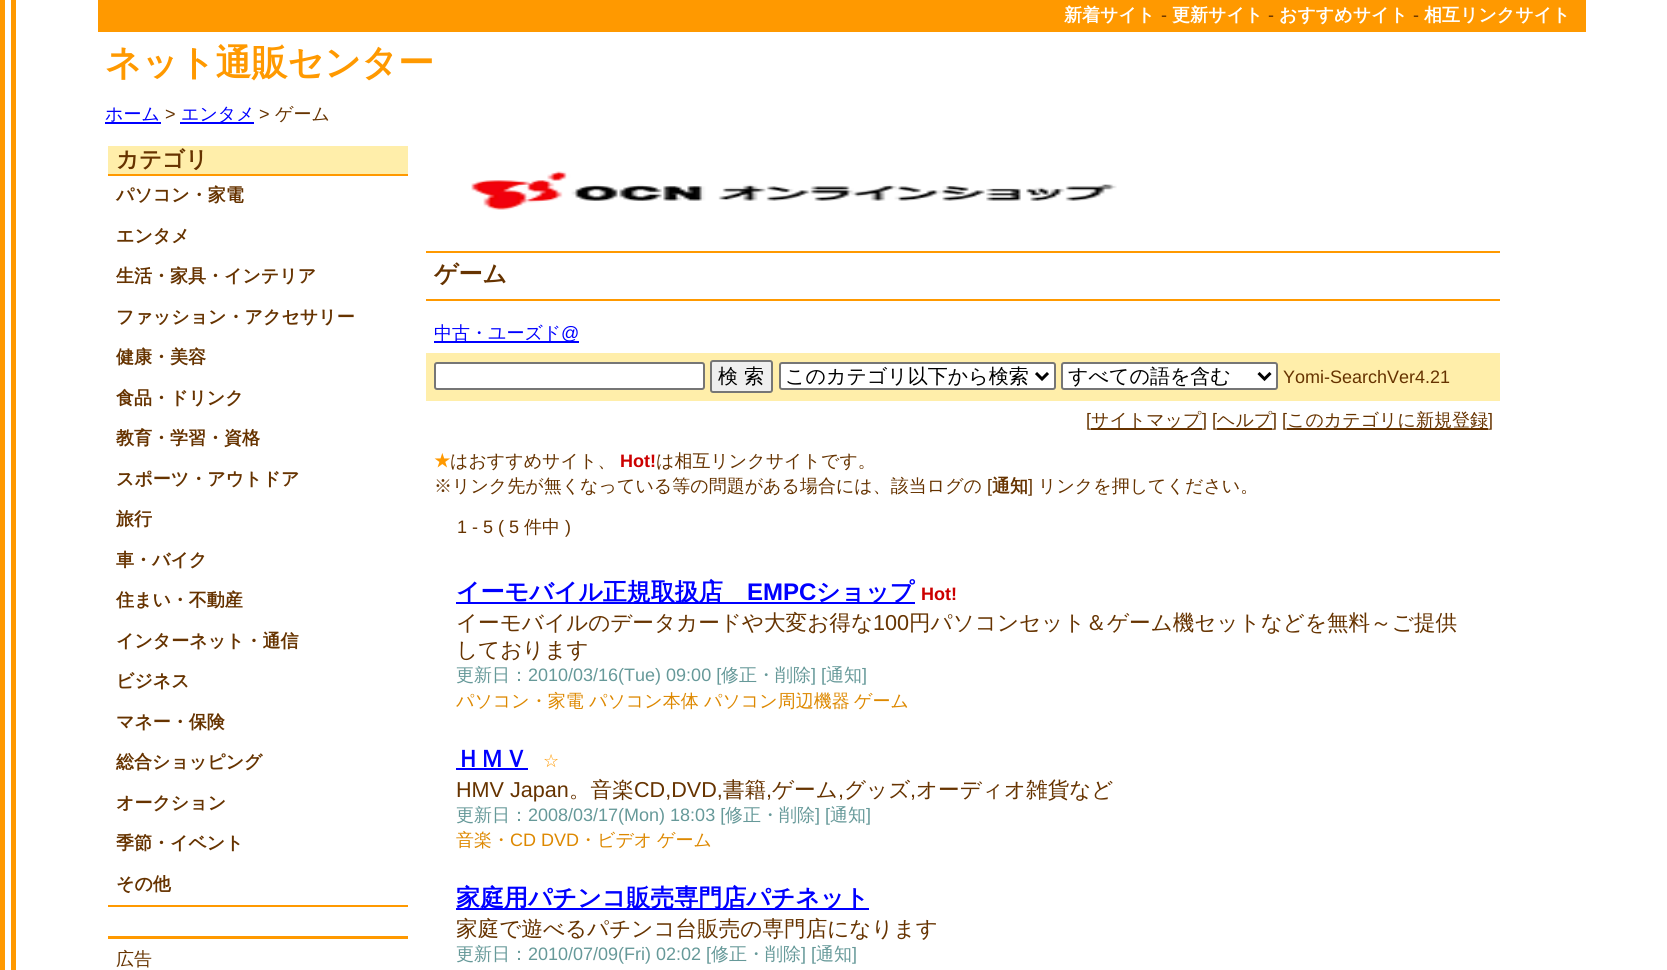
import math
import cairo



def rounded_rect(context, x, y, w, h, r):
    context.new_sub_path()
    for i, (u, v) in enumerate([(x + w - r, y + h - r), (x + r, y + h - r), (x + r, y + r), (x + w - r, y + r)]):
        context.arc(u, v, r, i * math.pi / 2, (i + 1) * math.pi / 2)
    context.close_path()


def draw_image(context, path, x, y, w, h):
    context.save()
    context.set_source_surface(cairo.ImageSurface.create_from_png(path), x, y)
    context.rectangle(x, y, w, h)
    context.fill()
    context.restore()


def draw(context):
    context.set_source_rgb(1, 1, 1)
    context.paint()
    context.set_source_rgb(1, 153 / 255, 0)
    context.rectangle(0, 0, 5, 970)
    context.fill()
    context.rectangle(11, 0, 5, 970)
    context.fill()
    context.rectangle(98, 0, 1488, 32)
    context.fill()
    context.set_source_rgb(0, 0, 1)
    context.rectangle(105, 122, 56, 2)
    context.fill()
    context.rectangle(180, 122, 74, 2)
    context.fill()
    context.set_source_rgb(1, 238 / 255, 170 / 255)
    context.rectangle(108, 146, 300, 28)
    context.fill()
    context.set_source_rgb(1, 153 / 255, 0)
    context.rectangle(108, 174, 300, 2)
    context.fill()
    context.rectangle(108, 905, 300, 2)
    context.fill()
    context.rectangle(108, 936, 300, 3)
    context.fill()
    draw_image(context, "images/1.png", 471, 171, 646, 39)
    context.rectangle(426, 251, 1074, 2)
    context.fill()
    context.rectangle(426, 299, 1074, 2)
    context.fill()
    context.set_source_rgb(0, 0, 1)
    context.rectangle(434, 341, 145, 2)
    context.fill()
    context.set_source_rgb(1, 238 / 255, 170 / 255)
    context.rectangle(426, 353, 1074, 48)
    context.fill()
    context.set_source_rgb(1, 1, 1)
    rounded_rect(context, 435, 363, 269, 26, 2)
    context.fill_preserve()
    context.set_source_rgb(118 / 255, 118 / 255, 118 / 255)
    context.stroke()
    context.set_source_rgb(239 / 255, 239 / 255, 239 / 255)
    rounded_rect(context, 711, 361, 61, 31, 2)
    context.fill_preserve()
    context.set_source_rgb(118 / 255, 118 / 255, 118 / 255)
    context.stroke()
    context.set_source_rgb(1, 1, 1)
    rounded_rect(context, 780, 363, 275, 26, 2)
    context.fill_preserve()
    context.set_source_rgb(118 / 255, 118 / 255, 118 / 255)
    context.stroke()
    context.new_path()
    context.move_to(1036, 373)
    context.line_to(1042, 379)
    context.line_to(1048, 373)
    context.set_source_rgb(0, 0, 0)
    context.set_line_width(3)
    context.stroke()
    context.set_source_rgb(1, 1, 1)
    rounded_rect(context, 1062, 363, 215, 26, 2)
    context.fill_preserve()
    context.set_source_rgb(118 / 255, 118 / 255, 118 / 255)
    context.set_line_width(2)
    context.stroke()
    context.new_path()
    context.move_to(1258.5, 373)
    context.line_to(1264.5, 379)
    context.line_to(1270.5, 373)
    context.set_source_rgb(0, 0, 0)
    context.set_line_width(3)
    context.stroke()
    context.set_source_rgb(102 / 255, 51 / 255, 0)
    context.rectangle(1091, 428, 111, 2)
    context.fill()
    context.rectangle(1217, 428, 55, 2)
    context.fill()
    context.rectangle(1287, 428, 201, 2)
    context.fill()
    context.set_source_rgb(0, 0, 1)
    context.rectangle(456, 602, 459, 2)
    context.fill()
    context.rectangle(456, 768, 72, 2)
    context.fill()
    context.rectangle(456, 908, 413, 2)
    context.fill()
    context.select_font_face("WenQuanYi Zen Hei", cairo.FontSlant.NORMAL, cairo.FontWeight.BOLD)
    context.set_font_size(18)
    context.set_source_rgb(1, 1, 1)
    context.move_to(1064, 21)
    context.show_text("新着サイト")
    context.select_font_face("Liberation Sans")
    context.set_source_rgb(102 / 255, 51 / 255, 0)
    context.move_to(1161, 21)
    context.show_text("-")
    context.select_font_face("WenQuanYi Zen Hei", cairo.FontSlant.NORMAL, cairo.FontWeight.BOLD)
    context.set_source_rgb(1, 1, 1)
    context.move_to(1172, 21)
    context.show_text("更新サイト")
    context.select_font_face("Liberation Sans")
    context.set_source_rgb(102 / 255, 51 / 255, 0)
    context.move_to(1268, 21)
    context.show_text("-")
    context.select_font_face("WenQuanYi Zen Hei", cairo.FontSlant.NORMAL, cairo.FontWeight.BOLD)
    context.set_source_rgb(1, 1, 1)
    context.move_to(1279, 21)
    context.show_text("おすすめサイト")
    context.select_font_face("Liberation Sans")
    context.set_source_rgb(102 / 255, 51 / 255, 0)
    context.move_to(1413, 21)
    context.show_text("-")
    context.select_font_face("WenQuanYi Zen Hei", cairo.FontSlant.NORMAL, cairo.FontWeight.BOLD)
    context.set_source_rgb(1, 1, 1)
    context.move_to(1424, 21)
    context.show_text("相互リンクサイト")
    context.set_font_size(36)
    context.set_source_rgb(1, 153 / 255, 0)
    context.move_to(105, 75)
    context.show_text("ネット通販センター")
    context.select_font_face("WenQuanYi Zen Hei Medium")
    context.set_font_size(18)
    context.set_source_rgb(0, 0, 1)
    context.move_to(105, 120)
    context.show_text("ホーム")
    context.select_font_face("Liberation Sans")
    context.set_source_rgb(102 / 255, 51 / 255, 0)
    context.move_to(165, 120)
    context.show_text(">")
    context.select_font_face("WenQuanYi Zen Hei Medium")
    context.set_source_rgb(0, 0, 1)
    context.move_to(181, 120)
    context.show_text("エンタメ")
    context.select_font_face("Liberation Sans")
    context.set_source_rgb(102 / 255, 51 / 255, 0)
    context.move_to(259, 120)
    context.show_text(">")
    context.select_font_face("WenQuanYi Zen Hei Medium")
    context.move_to(275, 120)
    context.show_text("ゲーム")
    context.select_font_face("WenQuanYi Zen Hei", cairo.FontSlant.NORMAL, cairo.FontWeight.BOLD)
    context.set_font_size(22.5)
    context.move_to(116, 167)
    context.show_text("カテゴリ")
    context.set_font_size(18)
    context.move_to(116, 201)
    context.show_text("パソコン・家電")
    context.move_to(116, 242)
    context.show_text("エンタメ")
    context.move_to(116, 282)
    context.show_text("生活・家具・インテリア")
    context.move_to(116, 323)
    context.show_text("ファッション・アクセサリー")
    context.move_to(116, 363)
    context.show_text("健康・美容")
    context.move_to(116, 404)
    context.show_text("食品・ドリンク")
    context.move_to(116, 444)
    context.show_text("教育・学習・資格")
    context.move_to(116, 485)
    context.show_text("スポーツ・アウトドア")
    context.move_to(116, 525)
    context.show_text("旅行")
    context.move_to(116, 566)
    context.show_text("車・バイク")
    context.move_to(116, 606)
    context.show_text("住まい・不動産")
    context.move_to(116, 647)
    context.show_text("インターネット・通信")
    context.move_to(116, 687)
    context.show_text("ビジネス")
    context.move_to(116, 728)
    context.show_text("マネー・保険")
    context.move_to(116, 768)
    context.show_text("総合ショッピング")
    context.move_to(116, 809)
    context.show_text("オークション")
    context.move_to(116, 849)
    context.show_text("季節・イベント")
    context.move_to(116, 890)
    context.show_text("その他")
    context.select_font_face("WenQuanYi Zen Hei Medium")
    context.move_to(116, 965)
    context.show_text("広告")
    context.select_font_face("WenQuanYi Zen Hei", cairo.FontSlant.NORMAL, cairo.FontWeight.BOLD)
    context.set_font_size(24)
    context.move_to(434, 282)
    context.show_text("ゲーム")
    context.select_font_face("WenQuanYi Zen Hei Medium")
    context.set_font_size(18)
    context.set_source_rgb(0, 0, 1)
    context.move_to(434, 339)
    context.show_text("中古・ユーズド")
    context.select_font_face("Liberation Sans")
    context.move_to(561, 339)
    context.show_text("@")
    context.select_font_face("WenQuanYi Zen Hei Medium")
    context.set_font_size(20)
    context.set_source_rgb(0, 0, 0)
    context.move_to(718, 383)
    context.show_text("検 索")
    context.move_to(785, 383)
    context.show_text("このカテゴリ以下から検索")
    context.move_to(1068, 383)
    context.show_text("すべての語を含む")
    context.select_font_face("Liberation Sans")
    context.set_font_size(18)
    context.set_source_rgb(102 / 255, 51 / 255, 0)
    context.move_to(1283, 383)
    context.show_text("Yomi-SearchVer4.21")
    context.move_to(1086, 426)
    context.show_text("[")
    context.select_font_face("WenQuanYi Zen Hei Medium")
    context.move_to(1091, 426)
    context.show_text("サイトマップ")
    context.select_font_face("Liberation Sans")
    context.move_to(1202, 426)
    context.show_text("] [")
    context.select_font_face("WenQuanYi Zen Hei Medium")
    context.move_to(1217, 426)
    context.show_text("ヘルプ")
    context.select_font_face("Liberation Sans")
    context.move_to(1272, 426)
    context.show_text("] [")
    context.select_font_face("WenQuanYi Zen Hei Medium")
    context.move_to(1287, 426)
    context.show_text("このカテゴリに新規登録")
    context.select_font_face("Liberation Sans")
    context.move_to(1488, 426)
    context.show_text("]")
    context.select_font_face("DejaVu Sans", cairo.FontSlant.NORMAL, cairo.FontWeight.BOLD)
    context.set_source_rgb(1, 153 / 255, 0)
    context.move_to(434, 467)
    context.show_text("★")
    context.select_font_face("WenQuanYi Zen Hei Medium")
    context.set_source_rgb(102 / 255, 51 / 255, 0)
    context.move_to(450, 467)
    context.show_text("はおすすめサイト、")
    context.select_font_face("Liberation Sans", cairo.FontSlant.NORMAL, cairo.FontWeight.BOLD)
    context.set_source_rgb(204 / 255, 0, 0)
    context.move_to(620, 467)
    context.show_text("Hot!")
    context.select_font_face("WenQuanYi Zen Hei Medium")
    context.set_source_rgb(102 / 255, 51 / 255, 0)
    context.move_to(656, 467)
    context.show_text("は相互リンクサイトです。")
    context.move_to(434, 492)
    context.show_text("※リンク先が無くなっている等の問題がある場合には、該当ログの")
    context.select_font_face("Liberation Sans")
    context.move_to(987, 492)
    context.show_text("[")
    context.select_font_face("WenQuanYi Zen Hei", cairo.FontSlant.NORMAL, cairo.FontWeight.BOLD)
    context.move_to(992, 492)
    context.show_text("通知")
    context.select_font_face("Liberation Sans")
    context.move_to(1028, 492)
    context.show_text("]")
    context.select_font_face("WenQuanYi Zen Hei Medium")
    context.move_to(1038, 492)
    context.show_text("リンクを押してください。")
    context.select_font_face("Liberation Sans")
    context.move_to(457, 533)
    context.show_text("1 - 5 ( 5")
    context.select_font_face("WenQuanYi Zen Hei Medium")
    context.move_to(524, 533)
    context.show_text("件中")
    context.select_font_face("Liberation Sans")
    context.move_to(565, 533)
    context.show_text(")")
    context.select_font_face("WenQuanYi Zen Hei", cairo.FontSlant.NORMAL, cairo.FontWeight.BOLD)
    context.set_font_size(24)
    context.set_source_rgb(0, 0, 1)
    context.move_to(456, 600)
    context.show_text("イーモバイル正規取扱店")
    context.select_font_face("Liberation Sans", cairo.FontSlant.NORMAL, cairo.FontWeight.BOLD)
    context.move_to(747, 600)
    context.show_text("EMPC")
    context.select_font_face("WenQuanYi Zen Hei", cairo.FontSlant.NORMAL, cairo.FontWeight.BOLD)
    context.move_to(816, 600)
    context.show_text("ショップ")
    context.select_font_face("Liberation Sans", cairo.FontSlant.NORMAL, cairo.FontWeight.BOLD)
    context.set_font_size(18)
    context.set_source_rgb(204 / 255, 0, 0)
    context.move_to(921, 600)
    context.show_text("Hot!")
    context.select_font_face("WenQuanYi Zen Hei Medium")
    context.set_font_size(21.6)
    context.set_source_rgb(102 / 255, 51 / 255, 0)
    context.move_to(456, 630)
    context.show_text("イーモバイルのデータカードや大変お得な")
    context.select_font_face("Liberation Sans")
    context.move_to(873, 630)
    context.show_text("100")
    context.select_font_face("WenQuanYi Zen Hei Medium")
    context.move_to(909, 630)
    context.show_text("円パソコンセット＆ゲーム機セットなどを無料～ご提供")
    context.move_to(456, 657)
    context.show_text("しております")
    context.set_font_size(18)
    context.set_source_rgb(102 / 255, 153 / 255, 153 / 255)
    context.move_to(456, 681)
    context.show_text("更新日：")
    context.select_font_face("Liberation Sans")
    context.move_to(528, 681)
    context.show_text("2010/03/16(Tue) 09:00 [")
    context.select_font_face("WenQuanYi Zen Hei Medium")
    context.move_to(721, 681)
    context.show_text("修正・削除")
    context.select_font_face("Liberation Sans")
    context.move_to(811, 681)
    context.show_text("] [")
    context.select_font_face("WenQuanYi Zen Hei Medium")
    context.move_to(826, 681)
    context.show_text("通知")
    context.select_font_face("Liberation Sans")
    context.move_to(862, 681)
    context.show_text("]")
    context.select_font_face("WenQuanYi Zen Hei Medium")
    context.set_source_rgb(221 / 255, 136 / 255, 0)
    context.move_to(456, 707)
    context.show_text("パソコン・家電")
    context.move_to(589, 707)
    context.show_text("パソコン本体")
    context.move_to(704, 707)
    context.show_text("パソコン周辺機器")
    context.move_to(854, 707)
    context.show_text("ゲーム")
    context.select_font_face("WenQuanYi Zen Hei", cairo.FontSlant.NORMAL, cairo.FontWeight.BOLD)
    context.set_font_size(24)
    context.set_source_rgb(0, 0, 1)
    context.move_to(456, 767)
    context.show_text("ＨＭＶ")
    context.select_font_face("DejaVu Sans")
    context.set_font_size(18)
    context.set_source_rgb(1, 153 / 255, 0)
    context.move_to(543, 767)
    context.show_text("☆")
    context.select_font_face("Liberation Sans")
    context.set_font_size(21.6)
    context.set_source_rgb(102 / 255, 51 / 255, 0)
    context.move_to(456, 797)
    context.show_text("HMV Japan")
    context.select_font_face("WenQuanYi Zen Hei Medium")
    context.move_to(569, 797)
    context.show_text("。音楽")
    context.select_font_face("Liberation Sans")
    context.move_to(634, 797)
    context.show_text("CD,DVD,")
    context.select_font_face("WenQuanYi Zen Hei Medium")
    context.move_to(723, 797)
    context.show_text("書籍")
    context.select_font_face("Liberation Sans")
    context.move_to(766, 797)
    context.show_text(",")
    context.select_font_face("WenQuanYi Zen Hei Medium")
    context.move_to(772, 797)
    context.show_text("ゲーム")
    context.select_font_face("Liberation Sans")
    context.move_to(838, 797)
    context.show_text(",")
    context.select_font_face("WenQuanYi Zen Hei Medium")
    context.move_to(844, 797)
    context.show_text("グッズ")
    context.select_font_face("Liberation Sans")
    context.move_to(910, 797)
    context.show_text(",")
    context.select_font_face("WenQuanYi Zen Hei Medium")
    context.move_to(916, 797)
    context.show_text("オーディオ雑貨など")
    context.set_font_size(18)
    context.set_source_rgb(102 / 255, 153 / 255, 153 / 255)
    context.move_to(456, 821)
    context.show_text("更新日：")
    context.select_font_face("Liberation Sans")
    context.move_to(528, 821)
    context.show_text("2008/03/17(Mon) 18:03 [")
    context.select_font_face("WenQuanYi Zen Hei Medium")
    context.move_to(725, 821)
    context.show_text("修正・削除")
    context.select_font_face("Liberation Sans")
    context.move_to(815, 821)
    context.show_text("] [")
    context.select_font_face("WenQuanYi Zen Hei Medium")
    context.move_to(830, 821)
    context.show_text("通知")
    context.select_font_face("Liberation Sans")
    context.move_to(866, 821)
    context.show_text("]")
    context.select_font_face("WenQuanYi Zen Hei Medium")
    context.set_source_rgb(221 / 255, 136 / 255, 0)
    context.move_to(456, 846)
    context.show_text("音楽・")
    context.select_font_face("Liberation Sans")
    context.move_to(510, 846)
    context.show_text("CD DVD")
    context.select_font_face("WenQuanYi Zen Hei Medium")
    context.move_to(579, 846)
    context.show_text("・ビデオ")
    context.move_to(657, 846)
    context.show_text("ゲーム")
    context.select_font_face("WenQuanYi Zen Hei", cairo.FontSlant.NORMAL, cairo.FontWeight.BOLD)
    context.set_font_size(24)
    context.set_source_rgb(0, 0, 1)
    context.move_to(456, 906)
    context.show_text("家庭用パチンコ販売専門店パチネット")
    context.select_font_face("WenQuanYi Zen Hei Medium")
    context.set_font_size(21.6)
    context.set_source_rgb(102 / 255, 51 / 255, 0)
    context.move_to(456, 936)
    context.show_text("家庭で遊べるパチンコ台販売の専門店になります")
    context.set_font_size(18)
    context.set_source_rgb(102 / 255, 153 / 255, 153 / 255)
    context.move_to(456, 960)
    context.show_text("更新日：")
    context.select_font_face("Liberation Sans")
    context.move_to(528, 960)
    context.show_text("2010/07/09(Fri) 02:02 [")
    context.select_font_face("WenQuanYi Zen Hei Medium")
    context.move_to(711, 960)
    context.show_text("修正・削除")
    context.select_font_face("Liberation Sans")
    context.move_to(801, 960)
    context.show_text("] [")
    context.select_font_face("WenQuanYi Zen Hei Medium")
    context.move_to(816, 960)
    context.show_text("通知")
    context.select_font_face("Liberation Sans")
    context.move_to(852, 960)
    context.show_text("]")


surface = cairo.ImageSurface(cairo.Format.RGB24, 1667, 970)
context = cairo.Context(surface)
options = cairo.FontOptions()
options.set_hint_metrics(cairo.HintMetrics.OFF)
options.set_hint_style(cairo.HintStyle.NONE)
context.set_font_options(options)
context.set_miter_limit(4)
draw(context)
surface.write_to_png("out.png")
